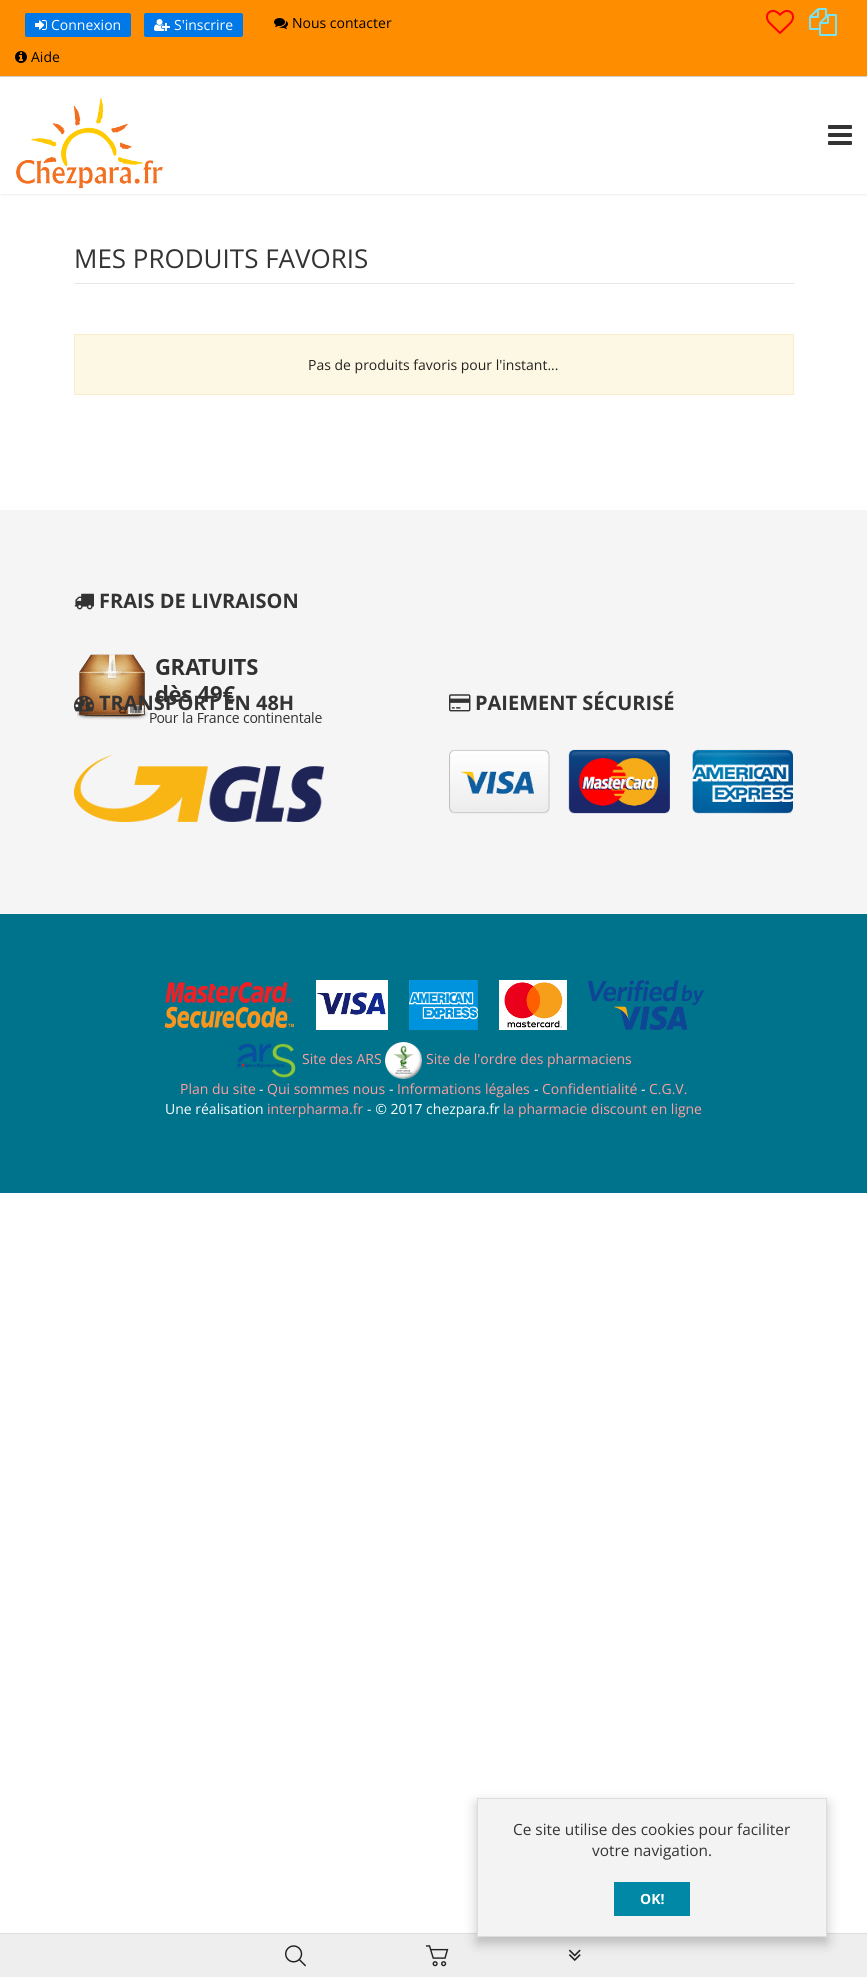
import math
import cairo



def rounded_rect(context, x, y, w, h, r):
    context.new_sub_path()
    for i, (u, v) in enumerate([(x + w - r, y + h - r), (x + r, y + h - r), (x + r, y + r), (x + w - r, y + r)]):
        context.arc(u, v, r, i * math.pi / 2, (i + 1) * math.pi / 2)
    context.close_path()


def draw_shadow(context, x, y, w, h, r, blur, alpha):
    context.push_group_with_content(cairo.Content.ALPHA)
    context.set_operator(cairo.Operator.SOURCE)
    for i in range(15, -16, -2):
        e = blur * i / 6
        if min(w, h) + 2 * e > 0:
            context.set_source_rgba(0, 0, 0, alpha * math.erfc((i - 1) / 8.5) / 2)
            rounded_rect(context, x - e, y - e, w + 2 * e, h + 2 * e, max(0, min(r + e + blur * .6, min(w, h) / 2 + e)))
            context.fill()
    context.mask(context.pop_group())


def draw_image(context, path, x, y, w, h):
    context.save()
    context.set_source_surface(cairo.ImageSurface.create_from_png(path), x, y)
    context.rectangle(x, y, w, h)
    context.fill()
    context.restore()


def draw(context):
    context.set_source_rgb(1, 1, 1)
    context.paint()
    context.set_source_rgb(1, 141 / 255, 0)
    context.rectangle(0, 0, 867, 76)
    context.fill()
    context.set_source_rgb(204 / 255, 204 / 255, 204 / 255)
    context.rectangle(0, 76, 867, 1)
    context.fill()
    context.set_source_rgb(0, 120 / 255, 231 / 255)
    rounded_rect(context, 25, 13, 106, 24, 2)
    context.fill()
    draw_image(context, "images/1.png", 35, 20, 12, 10)
    rounded_rect(context, 144, 13, 99, 24, 2)
    context.fill()
    draw_image(context, "images/2.png", 154, 19, 16, 12)
    draw_image(context, "images/3.png", 274, 18, 14, 11)
    draw_image(context, "images/4.png", 15, 51, 12, 12)
    draw_image(context, "images/5.png", 766, 10, 28, 24)
    draw_image(context, "images/6.png", 809, 8, 28, 28)
    context.save()
    context.rectangle(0, 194, 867, 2)
    context.clip()
    context.set_source_rgb(239 / 255, 239 / 255, 239 / 255)
    draw_shadow(context, 1, 78, 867, 117, 0, 0.5, 1)
    context.restore()
    draw_image(context, "images/7.png", 16, 98, 147, 91)
    draw_image(context, "images/8.png", 828, 125, 24, 20)
    context.set_source_rgb(230 / 255, 230 / 255, 230 / 255)
    context.rectangle(74, 283, 720, 1)
    context.fill()
    context.set_source_rgb(252 / 255, 248 / 255, 227 / 255)
    context.rectangle(74.5, 334.5, 719, 60)
    context.fill_preserve()
    context.set_source_rgb(250 / 255, 235 / 255, 204 / 255)
    context.set_line_width(1)
    context.stroke()
    context.set_source_rgb(245 / 255, 245 / 255, 246 / 255)
    context.rectangle(0, 510, 867, 404)
    context.fill()
    draw_image(context, "images/9.png", 74, 593, 20, 17)
    draw_image(context, "images/10.png", 77, 654, 245, 69)
    draw_image(context, "images/11.png", 74, 695, 20, 17)
    draw_image(context, "images/12.png", 74, 755, 250, 67)
    draw_image(context, "images/13.png", 449, 694, 22, 18)
    draw_image(context, "images/14.png", 449, 749, 344, 65)
    context.set_source_rgb(0, 115 / 255, 140 / 255)
    context.rectangle(0, 914, 867, 279)
    context.fill()
    draw_image(context, "images/15.png", 164, 980, 540, 50)
    draw_image(context, "images/16.png", 237, 1043, 59, 35)
    draw_image(context, "images/17.png", 385, 1042, 37, 37)
    context.set_source_rgb(238 / 255, 238 / 255, 238 / 255)
    context.rectangle(0, 1934, 867, 43)
    context.fill()
    context.set_source_rgb(221 / 255, 221 / 255, 221 / 255)
    context.rectangle(0, 1933, 867, 1)
    context.fill()
    draw_image(context, "images/20.png", 568, 1949, 13, 12)
    context.set_source_rgb(0, 0, 0)
    draw_shadow(context, 477, 1804, 350, 139, 0, 6.5, 0.23)
    context.set_source_rgb(243 / 255, 243 / 255, 243 / 255)
    context.rectangle(477.5, 1798.5, 349, 138)
    context.fill_preserve()
    context.set_source_rgb(221 / 255, 221 / 255, 221 / 255)
    context.stroke()
    context.set_source_rgb(0, 136 / 255, 166 / 255)
    context.rectangle(614, 1882, 76, 34)
    context.fill()
    draw_image(context, "images/18.png", 285, 1945, 21, 22)
    draw_image(context, "images/19.png", 426, 1945, 23, 22)
    context.select_font_face("Open Sans")
    context.set_font_size(14)
    context.set_source_rgb(1, 1, 1)
    context.move_to(51, 30)
    context.show_text("Connexion")
    context.move_to(174, 30)
    context.show_text("S'inscrire")
    context.set_source_rgb(0, 0, 0)
    context.move_to(292, 28)
    context.show_text("Nous contacter")
    context.move_to(31, 62)
    context.show_text("Aide")
    context.set_font_size(26)
    context.set_source_rgb(51 / 255, 51 / 255, 51 / 255)
    context.move_to(74, 268)
    context.show_text("MES PRODUITS FAVORIS")
    context.set_font_size(14)
    context.set_source_rgb(34 / 255, 34 / 255, 34 / 255)
    context.move_to(308, 370)
    context.show_text("Pas de produits favoris pour l'instant...")
    context.select_font_face("Open Sans", cairo.FontSlant.NORMAL, cairo.FontWeight.BOLD)
    context.set_font_size(20)
    context.set_source_rgb(51 / 255, 51 / 255, 51 / 255)
    context.move_to(99, 608)
    context.show_text("FRAIS DE LIVRAISON")
    context.move_to(99, 710)
    context.show_text("TRANSPORT EN 48H")
    context.move_to(475, 710)
    context.show_text("PAIEMENT SÉCURISÉ")
    context.select_font_face("Open Sans")
    context.set_font_size(14)
    context.set_source_rgb(1, 158 / 255, 158 / 255)
    context.move_to(302, 1064)
    context.show_text("Site des ARS")
    context.move_to(426, 1064)
    context.show_text("Site de l'ordre des pharmaciens")
    context.move_to(180, 1094)
    context.show_text("Plan du site")
    context.set_source_rgb(1, 1, 1)
    context.move_to(259, 1094)
    context.show_text("-")
    context.set_source_rgb(1, 158 / 255, 158 / 255)
    context.move_to(267, 1094)
    context.show_text("Qui sommes nous")
    context.set_source_rgb(1, 1, 1)
    context.move_to(389, 1094)
    context.show_text("-")
    context.set_source_rgb(1, 158 / 255, 158 / 255)
    context.move_to(397, 1094)
    context.show_text("Informations légales")
    context.set_source_rgb(1, 1, 1)
    context.move_to(534, 1094)
    context.show_text("-")
    context.set_source_rgb(1, 158 / 255, 158 / 255)
    context.move_to(542, 1094)
    context.show_text("Confidentialité")
    context.set_source_rgb(1, 1, 1)
    context.move_to(641, 1094)
    context.show_text("-")
    context.set_source_rgb(1, 158 / 255, 158 / 255)
    context.move_to(649, 1094)
    context.show_text("C.G.V.")
    context.set_source_rgb(1, 1, 1)
    context.move_to(165, 1114)
    context.show_text("Une réalisation")
    context.set_source_rgb(1, 158 / 255, 158 / 255)
    context.move_to(267, 1114)
    context.show_text("interpharma.fr")
    context.set_source_rgb(1, 1, 1)
    context.move_to(367, 1114)
    context.show_text("- © 2017 chezpara.fr")
    context.set_source_rgb(1, 158 / 255, 158 / 255)
    context.move_to(503, 1114)
    context.show_text("la pharmacie discount en ligne")
    context.set_font_size(15.4)
    context.set_source_rgb(51 / 255, 51 / 255, 51 / 255)
    context.move_to(513, 1835)
    context.show_text("Ce site utilise des cookies pour faciliter")
    context.move_to(592, 1856)
    context.show_text("votre navigation.")
    context.select_font_face("Open Sans", cairo.FontSlant.NORMAL, cairo.FontWeight.BOLD)
    context.set_font_size(14)
    context.set_source_rgb(1, 1, 1)
    context.move_to(640, 1904)
    context.show_text("OK!")


surface = cairo.ImageSurface(cairo.Format.RGB24, 867, 1977)
context = cairo.Context(surface)
options = cairo.FontOptions()
options.set_hint_metrics(cairo.HintMetrics.OFF)
options.set_hint_style(cairo.HintStyle.NONE)
context.set_font_options(options)
context.set_miter_limit(4)
draw(context)
surface.write_to_png("out.png")
